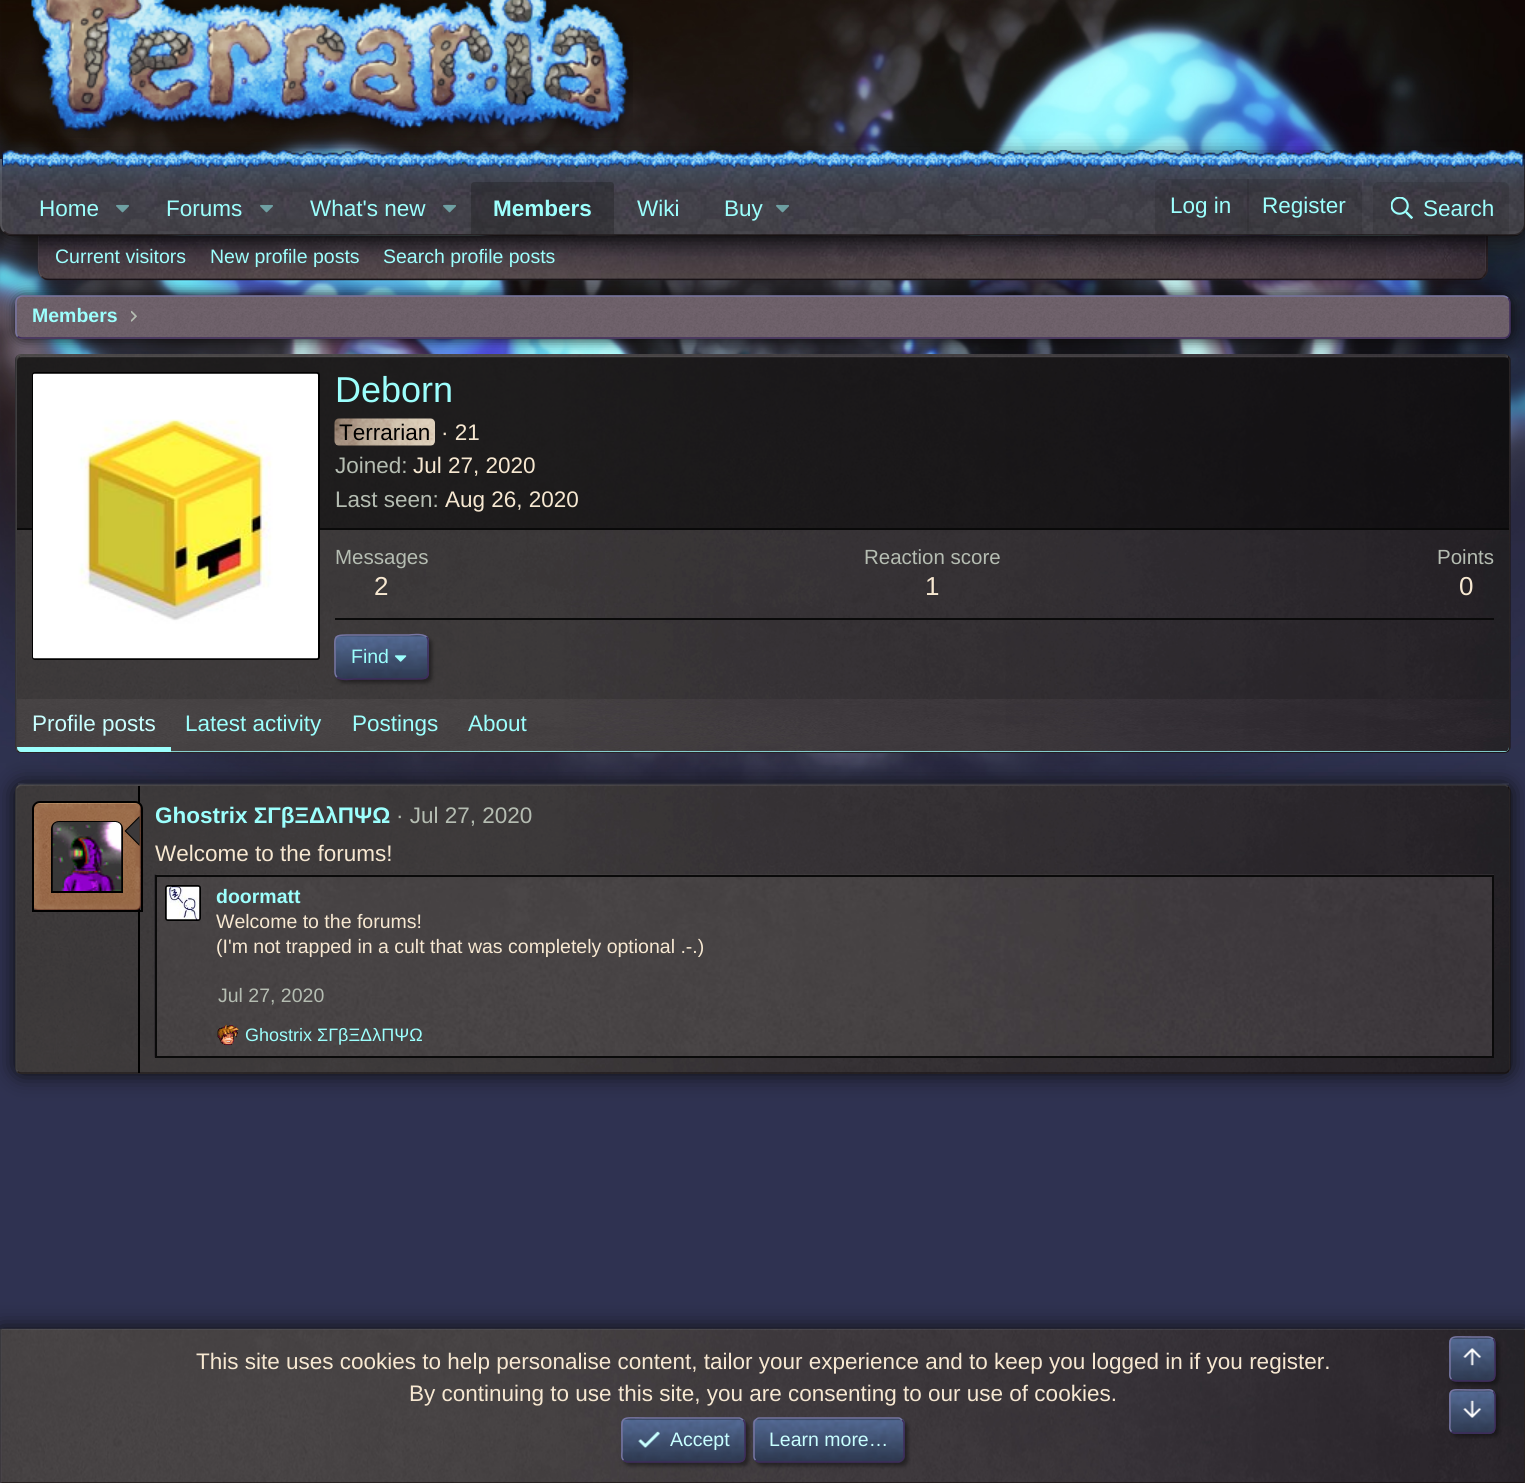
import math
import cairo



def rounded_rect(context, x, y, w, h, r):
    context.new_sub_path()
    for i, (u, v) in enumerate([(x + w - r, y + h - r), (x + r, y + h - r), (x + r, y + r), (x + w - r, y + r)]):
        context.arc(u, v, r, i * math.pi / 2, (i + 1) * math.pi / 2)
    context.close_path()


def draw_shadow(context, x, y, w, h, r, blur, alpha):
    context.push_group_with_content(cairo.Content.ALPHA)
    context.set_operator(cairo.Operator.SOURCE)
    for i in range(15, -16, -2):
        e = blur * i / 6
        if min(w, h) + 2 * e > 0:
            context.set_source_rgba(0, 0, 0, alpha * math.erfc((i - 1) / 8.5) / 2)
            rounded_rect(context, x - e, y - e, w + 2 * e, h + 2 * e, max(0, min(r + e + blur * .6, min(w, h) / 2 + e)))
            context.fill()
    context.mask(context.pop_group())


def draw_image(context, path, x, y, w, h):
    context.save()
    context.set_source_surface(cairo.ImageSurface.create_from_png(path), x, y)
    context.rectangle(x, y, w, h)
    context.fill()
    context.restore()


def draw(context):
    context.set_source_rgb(47 / 255, 50 / 255, 81 / 255)
    context.paint()
    draw_image(context, "images/1.png", 0, 0, 1525, 815)
    draw_image(context, "images/2.png", 30, 0, 603, 138)
    context.set_source_rgb(10 / 255, 10 / 255, 10 / 255)
    draw_shadow(context, 15, 296, 1496, 43, 8, 7.5, 1)
    draw_image(context, "images/11.png", 37, 235, 1451, 46)
    context.set_source_rgba(13 / 255, 4 / 255, 2 / 255, 0.5)
    context.new_path()
    context.move_to(1484, 277)
    context.line_to(1483, 276)
    context.curve_to(1485, 274, 1486, 271, 1486, 268)
    context.line_to(1486, 236)
    context.line_to(1488, 236)
    context.line_to(1488, 268)
    context.curve_to(1488, 272, 1487, 275, 1484, 277)
    context.close_path()
    context.fill()
    context.new_path()
    context.move_to(1484, 277)
    context.curve_to(1482, 279, 1479, 280, 1476, 280)
    context.line_to(50, 280)
    context.curve_to(46, 280, 44, 279, 41, 277)
    context.line_to(42, 276)
    context.curve_to(44, 278, 47, 279, 50, 279)
    context.line_to(1476, 279)
    context.curve_to(1479, 279, 1482, 278, 1483, 276)
    context.close_path()
    context.fill()
    context.set_source_rgba(1, 1, 1, 0.1)
    context.new_path()
    context.move_to(38, 236)
    context.line_to(39, 236)
    context.line_to(39, 268)
    context.curve_to(39, 271, 40, 274, 42, 276)
    context.line_to(41, 277)
    context.curve_to(39, 274, 38, 272, 38, 268)
    context.close_path()
    context.fill()
    context.set_source_rgb(10 / 255, 10 / 255, 10 / 255)
    draw_shadow(context, 0, 159, 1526, 77, 12, 11, 1)
    draw_image(context, "images/3.png", 0, 159, 1525, 77)
    context.set_source_rgba(13 / 255, 4 / 255, 2 / 255, 0.5)
    context.new_path()
    context.move_to(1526, 159)
    context.line_to(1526, 227)
    context.curve_to(1525, 229, 1524, 231, 1522, 232)
    context.line_to(1521, 231)
    context.curve_to(1523, 229, 1524, 226, 1524, 224)
    context.line_to(1524, 159)
    context.close_path()
    context.fill()
    context.new_path()
    context.move_to(9, 236)
    context.curve_to(7, 235, 5, 234, 3, 232)
    context.line_to(5, 231)
    context.curve_to(6, 233, 9, 234, 12, 234)
    context.line_to(1514, 234)
    context.curve_to(1516, 234, 1519, 233, 1521, 231)
    context.line_to(1522, 232)
    context.curve_to(1521, 234, 1519, 235, 1517, 236)
    context.close_path()
    context.fill()
    context.set_source_rgba(1, 1, 1, 0.1)
    context.new_path()
    context.move_to(0, 159)
    context.line_to(2, 159)
    context.line_to(2, 224)
    context.curve_to(2, 226, 3, 229, 5, 231)
    context.line_to(3, 232)
    context.curve_to(1, 230, 0, 227, 0, 224)
    context.close_path()
    context.fill()
    draw_image(context, "images/4.png", 2, 150, 1523, 19)
    draw_image(context, "images/5.png", 3, 150, 1520, 19)
    draw_image(context, "images/6.png", 116, 204, 13, 9)
    draw_image(context, "images/7.png", 260, 204, 13, 9)
    draw_image(context, "images/8.png", 443, 204, 13, 9)
    context.set_source_rgba(20 / 255, 20 / 255, 20 / 255, 0.3)
    context.new_path()
    context.move_to(474, 182)
    context.line_to(611, 182)
    context.curve_to(612.5, 182, 614, 183.5, 614, 185)
    context.line_to(614, 234)
    context.line_to(471, 234)
    context.line_to(471, 185)
    context.curve_to(471, 183.5, 472.5, 182, 474, 182)
    context.close_path()
    context.fill()
    draw_image(context, "images/9.png", 776, 204, 13, 9)
    context.set_source_rgba(20 / 255, 20 / 255, 20 / 255, 0.15)
    context.new_path()
    context.move_to(1161, 179)
    context.line_to(1356, 179)
    context.curve_to(1359.5, 179, 1362, 181.5, 1362, 185)
    context.line_to(1362, 234)
    context.line_to(1155, 234)
    context.line_to(1155, 185)
    context.curve_to(1155, 181.5, 1157.5, 179, 1161, 179)
    context.close_path()
    context.fill()
    context.rectangle(1247, 179, 2, 52)
    context.fill()
    context.new_path()
    context.move_to(1379, 182)
    context.line_to(1503, 182)
    context.curve_to(1506.5, 182, 1509, 184.5, 1509, 188)
    context.line_to(1509, 234)
    context.line_to(1373, 234)
    context.line_to(1373, 188)
    context.curve_to(1373, 184.5, 1375.5, 182, 1379, 182)
    context.close_path()
    context.fill()
    draw_image(context, "images/10.png", 1391, 197, 22, 22)
    draw_image(context, "images/12.png", 15, 295, 1496, 44)
    context.new_path()
    context.move_to(1508, 298)
    context.curve_to(1509, 299.5, 1510, 301, 1510, 303)
    context.line_to(1510, 331.5)
    context.curve_to(1510, 333.5, 1509, 335, 1508, 336.5)
    context.curve_to(1506.5, 337.5, 1505, 338, 1503, 338)
    context.line_to(22.5, 338)
    context.curve_to(20.5, 338, 19, 337.5, 17.5, 336.5)
    context.set_source_rgb(63 / 255, 44 / 255, 92 / 255)
    context.set_line_width(1.5)
    context.stroke()
    context.new_path()
    context.move_to(17.5, 336.5)
    context.curve_to(16.5, 335, 16, 333.5, 16, 331.5)
    context.line_to(16, 303)
    context.curve_to(16, 301, 16.5, 299.5, 17.5, 298)
    context.curve_to(19, 297, 20.5, 296, 22.5, 296)
    context.line_to(1503, 296)
    context.curve_to(1505, 296, 1506.5, 297, 1508, 298)
    context.set_source_rgb(120 / 255, 118 / 255, 162 / 255)
    context.stroke()
    draw_image(context, "images/13.png", 131, 310, 6, 12)
    draw_image(context, "images/14.png", 15, 354, 1496, 399)
    context.new_path()
    context.move_to(1508, 356.5)
    context.curve_to(1509, 357.5, 1510, 358.5, 1510, 360)
    context.line_to(1510, 747)
    context.curve_to(1510, 748.5, 1509, 749.5, 1508, 750.5)
    context.curve_to(1507, 751.5, 1506, 752, 1504.5, 752)
    context.line_to(21, 752)
    context.curve_to(19.5, 752, 18.5, 751.5, 17.5, 750.5)
    context.set_source_rgba(13 / 255, 4 / 255, 2 / 255, 0.5)
    context.stroke()
    context.new_path()
    context.move_to(17.5, 750.5)
    context.curve_to(16.5, 749.5, 16, 748.5, 16, 747)
    context.line_to(16, 360)
    context.curve_to(16, 358.5, 16.5, 357.5, 17.5, 356.5)
    context.curve_to(18.5, 355.5, 19.5, 355, 21, 355)
    context.line_to(1504.5, 355)
    context.curve_to(1506, 355, 1507, 355.5, 1508, 356.5)
    context.set_source_rgba(1, 1, 1, 0.1)
    context.stroke()
    context.rectangle(20, 356, 1488, 2)
    context.fill()
    context.set_source_rgba(0, 0, 0, 0.5)
    context.new_path()
    context.move_to(22, 357)
    context.line_to(1504, 357)
    context.curve_to(1507, 357, 1509, 359, 1509, 362)
    context.line_to(1509, 530)
    context.line_to(17, 530)
    context.line_to(17, 362)
    context.curve_to(17, 359, 19, 357, 22, 357)
    context.close_path()
    context.fill()
    context.set_source_rgb(10 / 255, 10 / 255, 10 / 255)
    context.rectangle(17, 528, 1492, 2)
    context.fill()
    rounded_rect(context, 33, 373, 286, 286, 2)
    context.set_source_rgb(0, 0, 0)
    context.set_line_width(2)
    context.stroke()
    draw_image(context, "images/15.png", 33, 373, 285, 286)
    draw_image(context, "images/16.png", 334, 418, 101, 28)
    context.set_source_rgb(10 / 255, 10 / 255, 10 / 255)
    context.rectangle(335, 618, 1159, 2)
    context.fill()
    context.set_source_rgb(10 / 255, 10 / 255, 10 / 255)
    draw_shadow(context, 338, 638, 94, 45, 6, 2, 0.5)
    draw_image(context, "images/17.png", 334, 634, 95, 46)
    context.new_path()
    context.move_to(426.5, 637)
    context.curve_to(429, 639, 428, 643, 428, 646)
    context.line_to(428, 657)
    context.curve_to(428, 680, 432, 679, 409, 679)
    context.line_to(354, 679)
    context.curve_to(353.5, 679, 340.5, 681, 337, 677)
    context.set_source_rgb(63 / 255, 44 / 255, 92 / 255)
    context.set_line_width(1.5)
    context.stroke()
    context.new_path()
    context.move_to(337, 677)
    context.curve_to(334.5, 675, 335, 671, 335, 668)
    context.line_to(335, 657)
    context.curve_to(335, 634, 331.5, 635, 354, 635)
    context.line_to(409, 635)
    context.curve_to(410, 635, 423, 633, 426.5, 637)
    context.set_source_rgb(120 / 255, 118 / 255, 162 / 255)
    context.stroke()
    draw_image(context, "images/18.png", 395, 655, 12, 7)
    context.set_source_rgba(1, 1, 1, 0.1)
    context.rectangle(18, 783, 1491, 2)
    context.fill()
    context.set_source_rgb(10 / 255, 10 / 255, 10 / 255)
    draw_shadow(context, 15, 785, 1496, 289, 6, 11, 1)
    context.set_source_rgb(156 / 255, 1, 253 / 255)
    context.new_path()
    context.move_to(17, 699)
    context.line_to(1509, 699)
    context.line_to(1509, 747)
    context.curve_to(1509, 750, 1507, 752, 1504, 752)
    context.line_to(22, 752)
    context.curve_to(19, 752, 17, 750, 17, 747)
    context.close_path()
    context.fill()
    draw_image(context, "images/19.png", 17, 699, 1492, 53)
    context.new_path()
    context.move_to(17, 747)
    context.line_to(171, 747)
    context.line_to(171, 752)
    context.line_to(22, 752)
    context.curve_to(19, 752, 17, 750, 17, 747)
    context.close_path()
    context.fill()
    draw_image(context, "images/20.png", 15, 784, 1496, 290)
    context.new_path()
    context.move_to(1508, 787)
    context.curve_to(1509, 788, 1510, 789, 1510, 790.5)
    context.line_to(1510, 1068)
    context.curve_to(1510, 1069.5, 1509, 1070.5, 1508, 1071.5)
    context.curve_to(1507, 1072.5, 1506, 1073, 1504.5, 1073)
    context.line_to(21, 1073)
    context.curve_to(19.5, 1073, 18.5, 1072.5, 17.5, 1071.5)
    context.set_source_rgba(13 / 255, 4 / 255, 2 / 255, 0.5)
    context.stroke()
    context.new_path()
    context.move_to(17.5, 1071.5)
    context.curve_to(16.5, 1070.5, 16, 1069.5, 16, 1068)
    context.line_to(16, 790.5)
    context.curve_to(16, 789, 16.5, 788, 17.5, 787)
    context.curve_to(18.5, 786, 19.5, 785, 21, 785)
    context.line_to(1504.5, 785)
    context.curve_to(1506, 785, 1507, 786, 1508, 787)
    context.set_source_rgba(1, 1, 1, 0.1)
    context.stroke()
    context.set_source_rgb(0, 0, 0)
    context.rectangle(138, 786, 2, 287)
    context.fill()
    draw_image(context, "images/21.png", 33, 802, 108, 108)
    context.new_path()
    context.move_to(40, 802)
    context.line_to(135, 802)
    context.curve_to(139, 802, 142, 805, 142, 809)
    context.line_to(142, 911)
    context.line_to(33, 911)
    context.line_to(33, 809)
    context.curve_to(33, 805, 36, 802, 40, 802)
    context.close_path()
    context.set_line_width(2)
    context.stroke()
    context.new_path()
    context.move_to(59, 822)
    context.line_to(115, 822)
    context.curve_to(119, 822, 122, 825, 122, 829)
    context.line_to(122, 892)
    context.line_to(52, 892)
    context.line_to(52, 829)
    context.curve_to(52, 825, 55, 822, 59, 822)
    context.close_path()
    context.stroke()
    draw_image(context, "images/22.png", 52, 822, 70, 69)
    context.new_path()
    context.move_to(139.5, 816)
    context.line_to(139.5, 846)
    context.line_to(124.5, 831)
    context.close_path()
    context.fill()
    context.set_source_rgb(60 / 255, 57 / 255, 58 / 255)
    context.new_path()
    context.move_to(139.5, 817.5)
    context.line_to(139.5, 844.5)
    context.line_to(126, 831)
    context.close_path()
    context.fill()
    draw_image(context, "images/23.png", 154, 874, 1340, 184)
    context.rectangle(156, 876, 1337, 181)
    context.set_source_rgb(10 / 255, 10 / 255, 10 / 255)
    context.stroke()
    rounded_rect(context, 166, 886, 34, 34, 2)
    context.set_source_rgb(0, 0, 0)
    context.stroke()
    draw_image(context, "images/24.png", 166, 886, 34, 34)
    draw_image(context, "images/25.png", 217, 1024, 22, 21)
    context.set_source_rgb(10 / 255, 10 / 255, 10 / 255)
    draw_shadow(context, 0, 1329, 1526, 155, 0, 11, 1)
    draw_image(context, "images/26.png", 0, 1328, 1525, 155)
    context.set_source_rgba(1, 1, 1, 0.1)
    context.new_path()
    context.move_to(0, 1329)
    context.line_to(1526, 1329)
    context.line_to(1524, 1330)
    context.line_to(2, 1330)
    context.close_path()
    context.fill()
    context.set_source_rgba(13 / 255, 4 / 255, 2 / 255, 0.5)
    context.new_path()
    context.move_to(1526, 1329)
    context.line_to(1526, 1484)
    context.line_to(1524, 1482)
    context.line_to(1524, 1330)
    context.close_path()
    context.fill()
    context.new_path()
    context.move_to(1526, 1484)
    context.line_to(0, 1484)
    context.line_to(2, 1482)
    context.line_to(1524, 1482)
    context.close_path()
    context.fill()
    context.set_source_rgba(1, 1, 1, 0.1)
    context.new_path()
    context.move_to(0, 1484)
    context.line_to(0, 1329)
    context.line_to(2, 1330)
    context.line_to(2, 1482)
    context.close_path()
    context.fill()
    context.set_source_rgb(10 / 255, 10 / 255, 10 / 255)
    draw_shadow(context, 624, 1421, 125, 45, 6, 2, 0.5)
    draw_image(context, "images/27.png", 621, 1417, 125, 46)
    context.new_path()
    context.move_to(743, 1420)
    context.curve_to(745.5, 1422, 745, 1426, 745, 1429)
    context.line_to(745, 1440)
    context.curve_to(745, 1465.5, 748, 1462, 721, 1462)
    context.line_to(627, 1462)
    context.curve_to(625.5, 1461.5, 624.5, 1461, 623.5, 1460)
    context.set_source_rgb(63 / 255, 44 / 255, 92 / 255)
    context.set_line_width(1.5)
    context.stroke()
    context.new_path()
    context.move_to(623.5, 1460)
    context.curve_to(621, 1458, 622, 1454, 622, 1451)
    context.line_to(622, 1440)
    context.curve_to(622, 1414.5, 618.5, 1418, 646, 1418)
    context.line_to(739.5, 1418)
    context.curve_to(741, 1418.5, 742, 1419, 743, 1420)
    context.set_source_rgb(120 / 255, 118 / 255, 162 / 255)
    context.stroke()
    draw_image(context, "images/28.png", 638, 1431, 22, 17)
    context.set_source_rgb(10 / 255, 10 / 255, 10 / 255)
    draw_shadow(context, 756, 1421, 152, 45, 6, 2, 0.5)
    draw_image(context, "images/29.png", 752, 1417, 153, 46)
    context.new_path()
    context.move_to(902, 1420)
    context.curve_to(903, 1421, 904, 1422, 904, 1423.5)
    context.line_to(904, 1456.5)
    context.curve_to(904, 1458, 903, 1459, 902, 1460)
    context.curve_to(901, 1461, 900, 1462, 898.5, 1462)
    context.line_to(759, 1462)
    context.curve_to(757.5, 1462, 756.5, 1461, 755.5, 1460)
    context.set_source_rgb(63 / 255, 44 / 255, 92 / 255)
    context.stroke()
    context.new_path()
    context.move_to(755.5, 1460)
    context.curve_to(754.5, 1459, 754, 1458, 754, 1456.5)
    context.line_to(754, 1423.5)
    context.curve_to(754, 1422, 754.5, 1421, 755.5, 1420)
    context.curve_to(756.5, 1419, 757.5, 1418, 759, 1418)
    context.line_to(898.5, 1418)
    context.curve_to(900, 1418, 901, 1419, 902, 1420)
    context.set_source_rgb(120 / 255, 118 / 255, 162 / 255)
    context.stroke()
    context.set_source_rgb(10 / 255, 10 / 255, 10 / 255)
    draw_shadow(context, 1452, 1340, 47, 45, 6, 2, 0.5)
    draw_image(context, "images/30.png", 1449, 1336, 47, 46)
    context.new_path()
    context.move_to(1493, 1339)
    context.curve_to(1495.5, 1341, 1495, 1345, 1495, 1348)
    context.line_to(1495, 1359)
    context.curve_to(1495, 1384.5, 1498, 1381, 1472, 1381)
    context.line_to(1461, 1381)
    context.curve_to(1458, 1381, 1453.5, 1381.5, 1451.5, 1379)
    context.set_source_rgb(63 / 255, 44 / 255, 92 / 255)
    context.stroke()
    context.new_path()
    context.move_to(1451.5, 1379)
    context.curve_to(1449, 1377, 1450, 1373, 1450, 1370)
    context.line_to(1450, 1359)
    context.curve_to(1450, 1333.5, 1446.5, 1337, 1472, 1337)
    context.line_to(1484, 1337)
    context.curve_to(1486.5, 1337, 1491, 1336.5, 1493, 1339)
    context.set_source_rgb(120 / 255, 118 / 255, 162 / 255)
    context.stroke()
    draw_image(context, "images/31.png", 1463, 1348, 19, 18)
    context.set_source_rgb(10 / 255, 10 / 255, 10 / 255)
    draw_shadow(context, 1452, 1392, 47, 45, 6, 2, 0.5)
    draw_image(context, "images/32.png", 1449, 1389, 47, 45)
    context.new_path()
    context.move_to(1493, 1391.5)
    context.curve_to(1495.5, 1393.5, 1495, 1397.5, 1495, 1400.5)
    context.line_to(1495, 1411.5)
    context.curve_to(1495, 1437, 1498, 1433, 1472, 1433)
    context.line_to(1461, 1433)
    context.curve_to(1458, 1433, 1453.5, 1434, 1451.5, 1431.5)
    context.set_source_rgb(63 / 255, 44 / 255, 92 / 255)
    context.stroke()
    context.new_path()
    context.move_to(1451.5, 1431.5)
    context.curve_to(1449, 1429.5, 1450, 1425.5, 1450, 1422.5)
    context.line_to(1450, 1411.5)
    context.curve_to(1450, 1386, 1446.5, 1390, 1472, 1390)
    context.line_to(1484, 1390)
    context.curve_to(1486.5, 1390, 1491, 1389, 1493, 1391.5)
    context.set_source_rgb(120 / 255, 118 / 255, 162 / 255)
    context.stroke()
    draw_image(context, "images/33.png", 1463, 1400, 19, 18)
    context.select_font_face("Liberation Sans")
    context.set_font_size(22.5)
    context.set_source_rgb(156 / 255, 1, 253 / 255)
    context.move_to(39, 216)
    context.show_text("Home")
    context.move_to(166, 216)
    context.show_text("Forums")
    context.move_to(310, 216)
    context.show_text("What's new")
    context.select_font_face("Liberation Sans", cairo.FontSlant.NORMAL, cairo.FontWeight.BOLD)
    context.move_to(493, 216)
    context.show_text("Members")
    context.select_font_face("Liberation Sans")
    context.move_to(637, 216)
    context.show_text("Wiki")
    context.move_to(724, 216)
    context.show_text("Buy")
    context.move_to(1170, 213)
    context.show_text("Log in")
    context.move_to(1262, 213)
    context.show_text("Register")
    context.move_to(1423, 216)
    context.show_text("Search")
    context.set_font_size(19.5)
    context.move_to(55, 263)
    context.show_text("Current visitors")
    context.move_to(210, 263)
    context.show_text("New profile posts")
    context.move_to(383, 263)
    context.show_text("Search profile posts")
    context.select_font_face("Liberation Sans", cairo.FontSlant.NORMAL, cairo.FontWeight.BOLD)
    context.move_to(32, 322)
    context.show_text("Members")
    context.select_font_face("Liberation Sans")
    context.set_font_size(36)
    context.move_to(335, 402)
    context.show_text("Deborn")
    context.set_font_size(22.5)
    context.set_source_rgb(0, 0, 0)
    context.move_to(339, 440)
    context.show_text("Terrarian")
    context.set_source_rgb(247 / 255, 232 / 255, 209 / 255)
    context.move_to(441, 440)
    context.show_text("· 21")
    context.set_source_rgb(181 / 255, 189 / 255, 178 / 255)
    context.move_to(335, 473)
    context.show_text("Joined:")
    context.set_source_rgb(247 / 255, 232 / 255, 209 / 255)
    context.move_to(413, 473)
    context.show_text("Jul 27, 2020")
    context.set_source_rgb(181 / 255, 189 / 255, 178 / 255)
    context.move_to(335, 507)
    context.show_text("Last seen:")
    context.set_source_rgb(247 / 255, 232 / 255, 209 / 255)
    context.move_to(445, 507)
    context.show_text("Aug 26, 2020")
    context.set_font_size(20.5)
    context.set_source_rgb(181 / 255, 189 / 255, 178 / 255)
    context.move_to(335, 564)
    context.show_text("Messages")
    context.set_font_size(26)
    context.set_source_rgb(247 / 255, 232 / 255, 209 / 255)
    context.move_to(374, 595)
    context.show_text("2")
    context.set_font_size(20.5)
    context.set_source_rgb(181 / 255, 189 / 255, 178 / 255)
    context.move_to(864, 564)
    context.show_text("Reaction score")
    context.set_font_size(26)
    context.set_source_rgb(247 / 255, 232 / 255, 209 / 255)
    context.move_to(925, 595)
    context.show_text("1")
    context.set_font_size(20.5)
    context.set_source_rgb(181 / 255, 189 / 255, 178 / 255)
    context.move_to(1437, 564)
    context.show_text("Points")
    context.set_font_size(26)
    context.set_source_rgb(247 / 255, 232 / 255, 209 / 255)
    context.move_to(1459, 595)
    context.show_text("0")
    context.set_font_size(19.5)
    context.set_source_rgb(156 / 255, 1, 253 / 255)
    context.move_to(351, 663)
    context.show_text("Find")
    context.set_font_size(22.5)
    context.set_source_rgb(200 / 255, 1, 1)
    context.move_to(32, 731)
    context.show_text("Profile posts")
    context.set_source_rgb(156 / 255, 1, 253 / 255)
    context.move_to(185, 731)
    context.show_text("Latest activity")
    context.move_to(352, 731)
    context.show_text("Postings")
    context.move_to(468, 731)
    context.show_text("About")
    context.select_font_face("Liberation Sans", cairo.FontSlant.NORMAL, cairo.FontWeight.BOLD)
    context.move_to(155, 823)
    context.show_text("Ghostrix ΣΓβΞΔλΠΨΩ")
    context.select_font_face("Liberation Sans")
    context.set_source_rgb(181 / 255, 189 / 255, 178 / 255)
    context.move_to(396, 823)
    context.show_text("· Jul 27, 2020")
    context.set_source_rgb(247 / 255, 232 / 255, 209 / 255)
    context.move_to(155, 861)
    context.show_text("Welcome to the forums!")
    context.select_font_face("Liberation Sans", cairo.FontSlant.NORMAL, cairo.FontWeight.BOLD)
    context.set_font_size(19.5)
    context.set_source_rgb(156 / 255, 1, 253 / 255)
    context.move_to(216, 903)
    context.show_text("doormatt")
    context.select_font_face("Liberation Sans")
    context.set_source_rgb(247 / 255, 232 / 255, 209 / 255)
    context.move_to(216, 928)
    context.show_text("Welcome to the forums!")
    context.move_to(216, 953)
    context.show_text("(I'm not trapped in a cult that was completely optional .-.)")
    context.set_source_rgb(181 / 255, 189 / 255, 178 / 255)
    context.move_to(218, 1002)
    context.show_text("Jul 27, 2020")
    context.set_font_size(18)
    context.set_source_rgb(156 / 255, 1, 253 / 255)
    context.move_to(245, 1041)
    context.show_text("Ghostrix ΣΓβΞΔλΠΨΩ")
    context.set_font_size(22.5)
    context.set_source_rgb(247 / 255, 232 / 255, 209 / 255)
    context.move_to(196, 1369)
    context.show_text("This site uses cookies to help personalise content, tailor your experience and to keep you logged in if you register.")
    context.move_to(409, 1401)
    context.show_text("By continuing to use this site, you are consenting to our use of cookies.")
    context.set_font_size(19.5)
    context.set_source_rgb(200 / 255, 1, 1)
    context.move_to(670, 1446)
    context.show_text("Accept")
    context.move_to(769, 1446)
    context.show_text("Learn more…")


surface = cairo.ImageSurface(cairo.Format.RGB24, 1525, 1483)
context = cairo.Context(surface)
options = cairo.FontOptions()
options.set_hint_metrics(cairo.HintMetrics.OFF)
options.set_hint_style(cairo.HintStyle.NONE)
context.set_font_options(options)
context.set_miter_limit(4)
draw(context)
surface.write_to_png("out.png")
